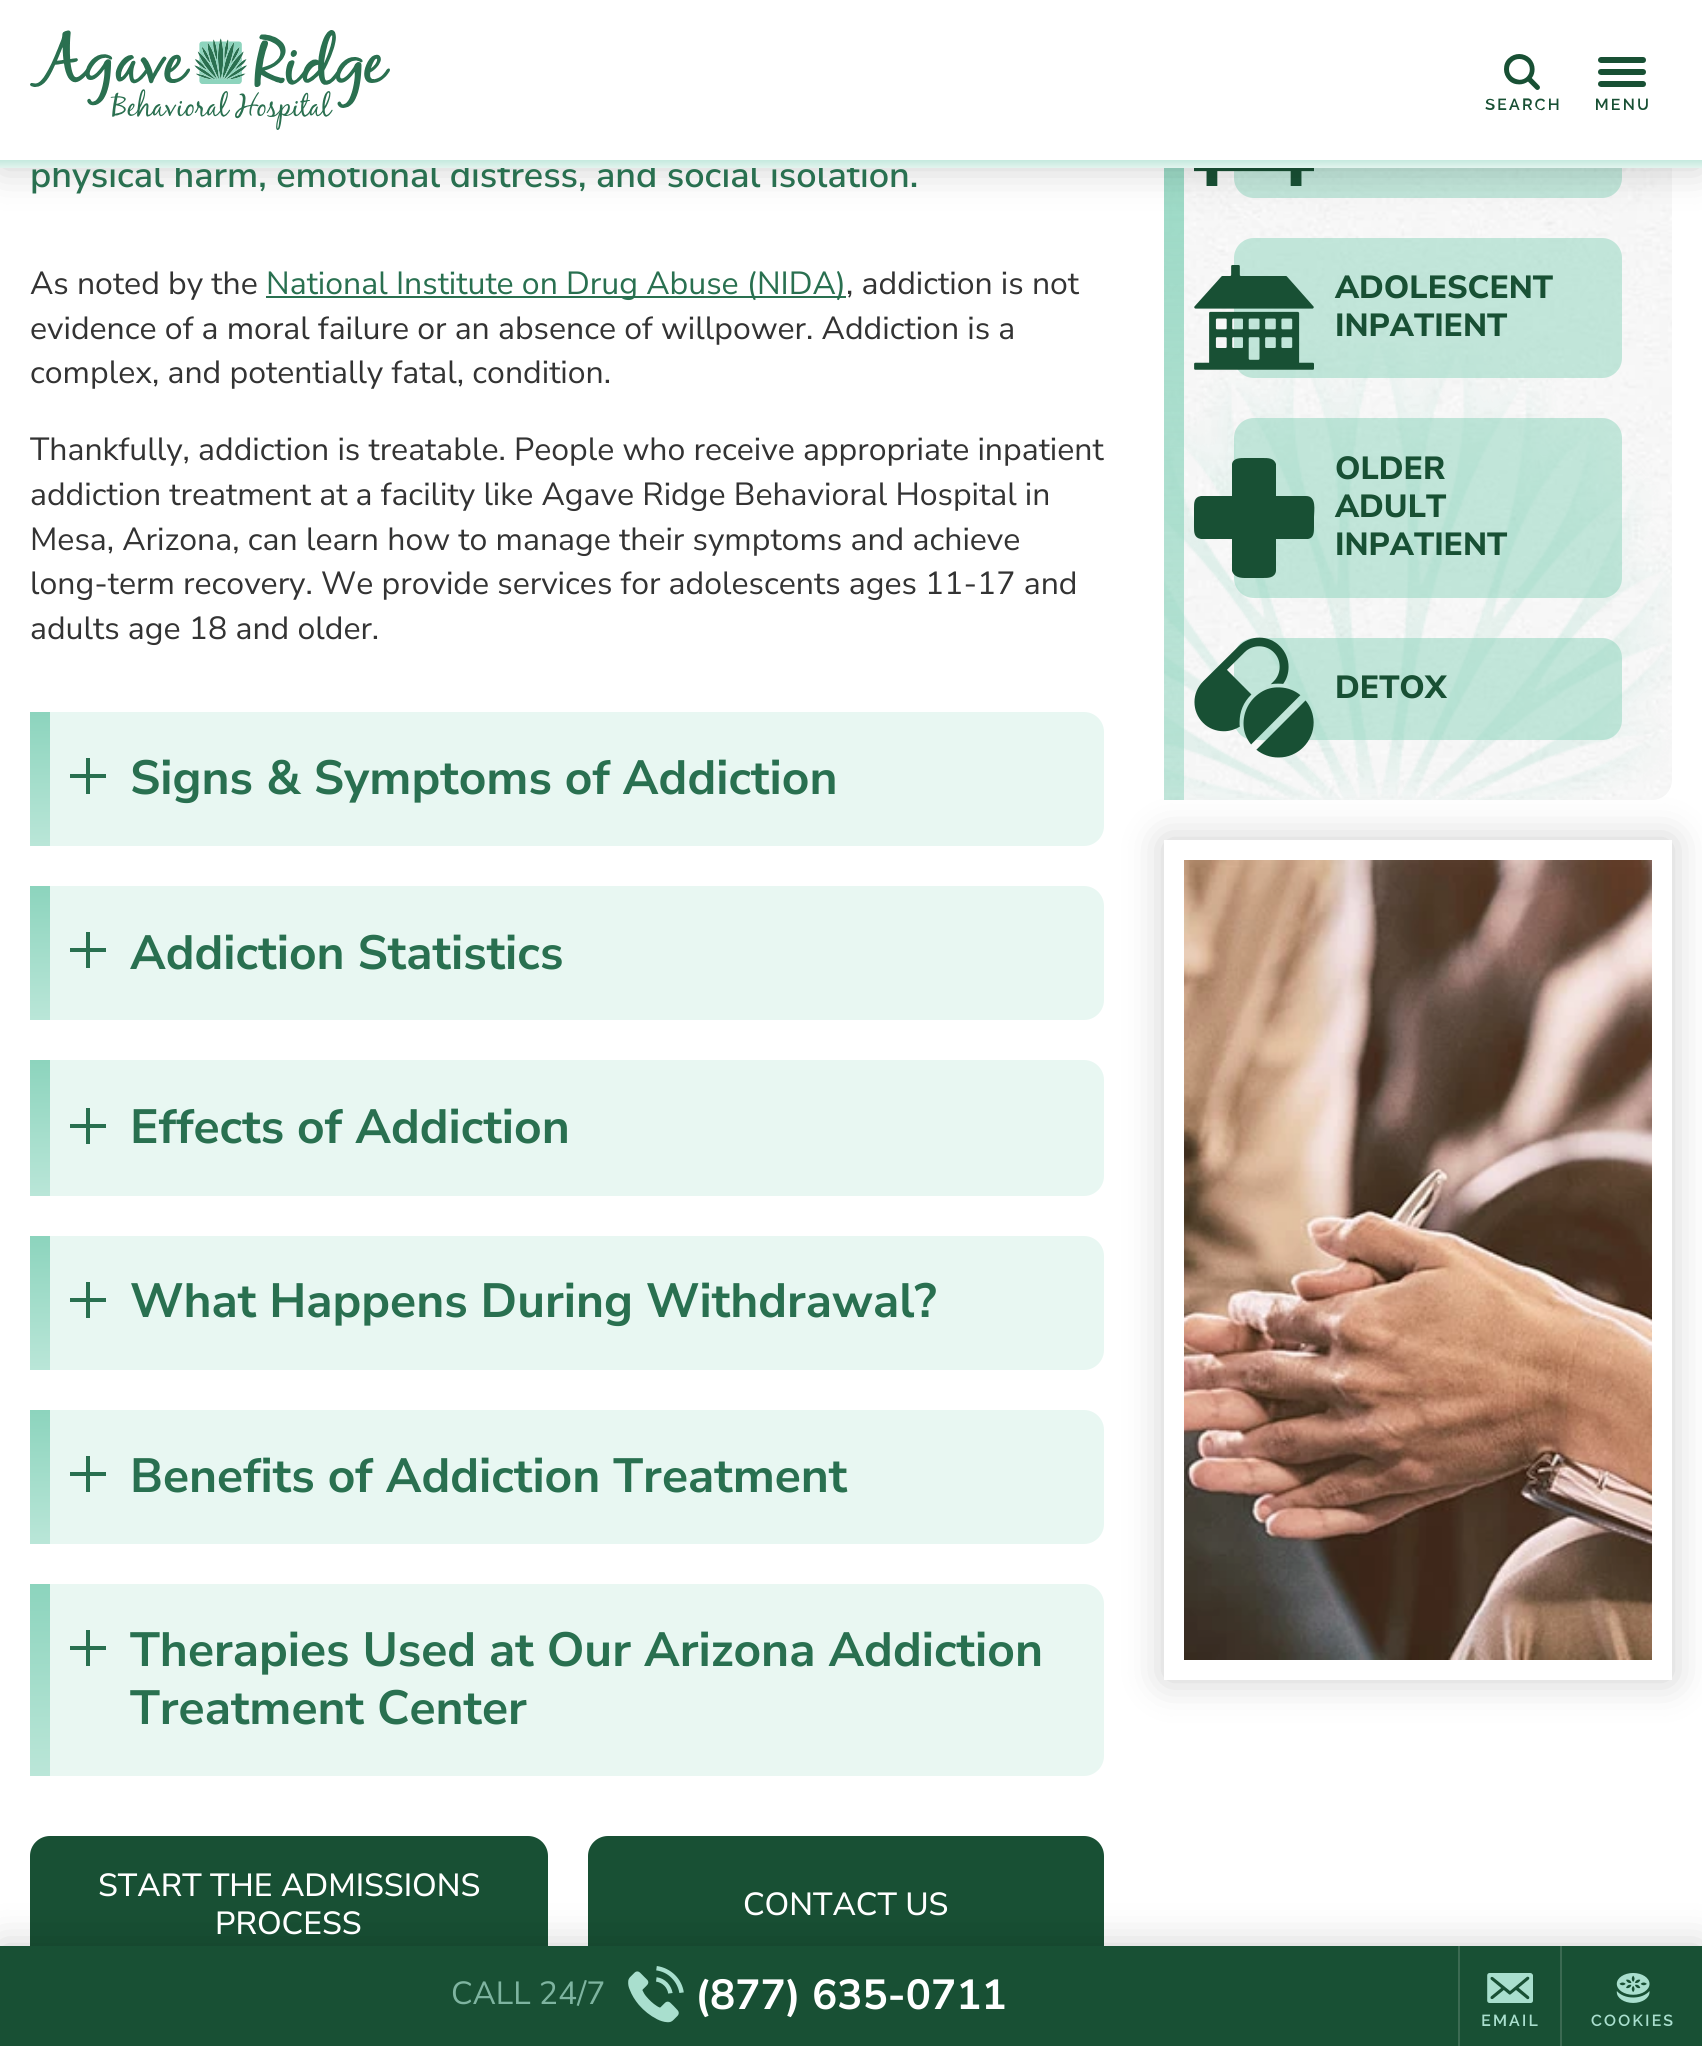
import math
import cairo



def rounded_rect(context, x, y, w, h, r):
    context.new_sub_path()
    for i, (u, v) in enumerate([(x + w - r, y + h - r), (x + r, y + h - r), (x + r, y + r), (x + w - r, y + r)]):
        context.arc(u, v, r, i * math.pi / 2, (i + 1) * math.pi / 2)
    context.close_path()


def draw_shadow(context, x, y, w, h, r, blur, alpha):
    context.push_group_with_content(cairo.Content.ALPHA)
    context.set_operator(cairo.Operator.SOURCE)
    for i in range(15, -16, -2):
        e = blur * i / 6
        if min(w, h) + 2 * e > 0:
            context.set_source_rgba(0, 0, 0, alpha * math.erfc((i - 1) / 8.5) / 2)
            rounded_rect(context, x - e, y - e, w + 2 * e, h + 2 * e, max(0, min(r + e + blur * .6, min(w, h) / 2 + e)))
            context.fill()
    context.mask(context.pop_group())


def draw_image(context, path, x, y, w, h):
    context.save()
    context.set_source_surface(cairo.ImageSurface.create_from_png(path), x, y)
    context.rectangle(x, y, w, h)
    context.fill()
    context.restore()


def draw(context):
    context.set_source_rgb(1, 1, 1)
    context.paint()
    draw_image(context, "images/4.png", 1164, 168, 508, 632)
    draw_image(context, "images/8.png", 1164, 343, 508, 457)
    gradient = cairo.LinearGradient(1174, -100, 1174, 800)
    gradient.add_color_stop_rgba(0, 140 / 255, 212 / 255, 189 / 255, 1)
    gradient.add_color_stop_rgba(1, 140 / 255, 212 / 255, 189 / 255, 0.5)
    context.set_source(gradient)
    context.rectangle(1164, 168, 20, 632)
    context.fill()
    context.set_source_rgba(140 / 255, 212 / 255, 189 / 255, 0.5)
    rounded_rect(context, 1234, 58, 388, 140, 20)
    context.fill()
    draw_image(context, "images/5.png", 1194, 168, 120, 18)
    context.set_source_rgb(0, 0, 0)
    draw_shadow(context, 0, 0, 1702, 168, 0, 20, 0.2)
    context.set_source_rgb(1, 1, 1)
    context.rectangle(0, 0, 1702, 160)
    context.fill()
    draw_image(context, "images/1.png", 30, 30, 360, 100)
    draw_image(context, "images/2.png", 1485, 54, 74, 57)
    draw_image(context, "images/3.png", 1596, 57, 52, 53)
    context.set_source_rgb(41 / 255, 112 / 255, 80 / 255)
    context.rectangle(266, 296, 580, 2)
    context.fill()
    context.set_source_rgb(232 / 255, 247 / 255, 242 / 255)
    context.new_path()
    context.move_to(30, 712)
    context.line_to(1084, 712)
    context.curve_to(1095, 712, 1104, 721, 1104, 732)
    context.line_to(1104, 826)
    context.curve_to(1104, 837, 1095, 846, 1084, 846)
    context.line_to(30, 846)
    context.close_path()
    context.fill()
    gradient = cairo.LinearGradient(40, 712, 40, 846)
    gradient.add_color_stop_rgba(0, 140 / 255, 212 / 255, 189 / 255, 1)
    gradient.add_color_stop_rgba(1, 186 / 255, 230 / 255, 216 / 255, 1)
    context.set_source(gradient)
    context.rectangle(30, 712, 20, 134)
    context.fill()
    context.set_source_rgb(41 / 255, 112 / 255, 80 / 255)
    context.rectangle(86, 758, 4, 36)
    context.fill()
    context.rectangle(70, 774, 36, 4)
    context.fill()
    context.set_source_rgb(232 / 255, 247 / 255, 242 / 255)
    context.new_path()
    context.move_to(30, 886)
    context.line_to(1084, 886)
    context.curve_to(1095, 886, 1104, 895, 1104, 906)
    context.line_to(1104, 1000)
    context.curve_to(1104, 1011, 1095, 1020, 1084, 1020)
    context.line_to(30, 1020)
    context.close_path()
    context.fill()
    gradient = cairo.LinearGradient(40, 886, 40, 1020)
    gradient.add_color_stop_rgba(0, 140 / 255, 212 / 255, 189 / 255, 1)
    gradient.add_color_stop_rgba(1, 186 / 255, 230 / 255, 216 / 255, 1)
    context.set_source(gradient)
    context.rectangle(30, 886, 20, 134)
    context.fill()
    context.set_source_rgb(41 / 255, 112 / 255, 80 / 255)
    context.rectangle(86, 932, 4, 36)
    context.fill()
    context.rectangle(70, 948, 36, 4)
    context.fill()
    context.set_source_rgb(232 / 255, 247 / 255, 242 / 255)
    context.new_path()
    context.move_to(30, 1060)
    context.line_to(1084, 1060)
    context.curve_to(1095, 1060, 1104, 1069, 1104, 1080)
    context.line_to(1104, 1176)
    context.curve_to(1104, 1187, 1095, 1196, 1084, 1196)
    context.line_to(30, 1196)
    context.close_path()
    context.fill()
    gradient = cairo.LinearGradient(40, 1060, 40, 1196)
    gradient.add_color_stop_rgba(0, 140 / 255, 212 / 255, 189 / 255, 1)
    gradient.add_color_stop_rgba(1, 186 / 255, 230 / 255, 216 / 255, 1)
    context.set_source(gradient)
    context.rectangle(30, 1060, 20, 136)
    context.fill()
    context.set_source_rgb(41 / 255, 112 / 255, 80 / 255)
    context.rectangle(86, 1108, 4, 36)
    context.fill()
    context.rectangle(70, 1124, 36, 4)
    context.fill()
    context.set_source_rgb(232 / 255, 247 / 255, 242 / 255)
    context.new_path()
    context.move_to(30, 1236)
    context.line_to(1084, 1236)
    context.curve_to(1095, 1236, 1104, 1245, 1104, 1256)
    context.line_to(1104, 1350)
    context.curve_to(1104, 1361, 1095, 1370, 1084, 1370)
    context.line_to(30, 1370)
    context.close_path()
    context.fill()
    gradient = cairo.LinearGradient(40, 1236, 40, 1370)
    gradient.add_color_stop_rgba(0, 140 / 255, 212 / 255, 189 / 255, 1)
    gradient.add_color_stop_rgba(1, 186 / 255, 230 / 255, 216 / 255, 1)
    context.set_source(gradient)
    context.rectangle(30, 1236, 20, 134)
    context.fill()
    context.set_source_rgb(41 / 255, 112 / 255, 80 / 255)
    context.rectangle(86, 1282, 4, 36)
    context.fill()
    context.rectangle(70, 1298, 36, 4)
    context.fill()
    context.set_source_rgb(232 / 255, 247 / 255, 242 / 255)
    context.new_path()
    context.move_to(30, 1410)
    context.line_to(1084, 1410)
    context.curve_to(1095, 1410, 1104, 1419, 1104, 1430)
    context.line_to(1104, 1524)
    context.curve_to(1104, 1535, 1095, 1544, 1084, 1544)
    context.line_to(30, 1544)
    context.close_path()
    context.fill()
    gradient = cairo.LinearGradient(40, 1410, 40, 1544)
    gradient.add_color_stop_rgba(0, 140 / 255, 212 / 255, 189 / 255, 1)
    gradient.add_color_stop_rgba(1, 186 / 255, 230 / 255, 216 / 255, 1)
    context.set_source(gradient)
    context.rectangle(30, 1410, 20, 134)
    context.fill()
    context.set_source_rgb(41 / 255, 112 / 255, 80 / 255)
    context.rectangle(86, 1456, 4, 36)
    context.fill()
    context.rectangle(70, 1472, 36, 4)
    context.fill()
    context.set_source_rgb(233 / 255, 247 / 255, 242 / 255)
    context.new_path()
    context.move_to(30, 1584)
    context.line_to(1084, 1584)
    context.curve_to(1095, 1584, 1104, 1593, 1104, 1604)
    context.line_to(1104, 1756)
    context.curve_to(1104, 1767, 1095, 1776, 1084, 1776)
    context.line_to(30, 1776)
    context.close_path()
    context.fill()
    gradient = cairo.LinearGradient(40, 1584, 40, 1776)
    gradient.add_color_stop_rgba(0, 140 / 255, 212 / 255, 189 / 255, 1)
    gradient.add_color_stop_rgba(1, 187 / 255, 230 / 255, 216 / 255, 1)
    context.set_source(gradient)
    context.rectangle(30, 1584, 20, 192)
    context.fill()
    context.set_source_rgb(41 / 255, 112 / 255, 80 / 255)
    context.rectangle(86, 1630, 4, 36)
    context.fill()
    context.rectangle(70, 1646, 36, 4)
    context.fill()
    context.set_source_rgb(24 / 255, 80 / 255, 52 / 255)
    rounded_rect(context, 30, 1836, 518, 140, 20)
    context.fill()
    rounded_rect(context, 588, 1836, 516, 140, 20)
    context.fill()
    context.set_source_rgba(140 / 255, 212 / 255, 189 / 255, 0.5)
    rounded_rect(context, 1234, 238, 388, 140, 20)
    context.fill()
    draw_image(context, "images/6.png", 1194, 265, 120, 105)
    rounded_rect(context, 1234, 418, 388, 180, 20)
    context.fill()
    context.set_source_rgb(24 / 255, 80 / 255, 52 / 255)
    context.new_path()
    context.move_to(1306, 496)
    context.line_to(1276, 496)
    context.line_to(1276, 464)
    context.curve_to(1274, 458, 1268, 458, 1263, 458)
    context.line_to(1245, 458)
    context.curve_to(1240, 458, 1233, 458, 1232, 464)
    context.line_to(1232, 496)
    context.line_to(1201, 496)
    context.curve_to(1194, 497, 1194, 503, 1194, 508)
    context.line_to(1194, 527)
    context.curve_to(1194, 532, 1194, 538, 1201, 539)
    context.line_to(1232, 539)
    context.line_to(1232, 571)
    context.curve_to(1234, 577, 1240, 578, 1245, 578)
    context.line_to(1263, 578)
    context.curve_to(1268, 578, 1275, 578, 1276, 571)
    context.line_to(1276, 539)
    context.line_to(1308, 539)
    context.curve_to(1314, 538, 1314, 532, 1314, 527)
    context.line_to(1314, 517)
    context.curve_to(1314, 511, 1317, 496, 1306, 496)
    context.close_path()
    context.fill()
    context.set_source_rgba(140 / 255, 212 / 255, 189 / 255, 0.5)
    rounded_rect(context, 1234, 638, 388, 102, 20)
    context.fill()
    draw_image(context, "images/7.png", 1194, 637, 120, 121)
    context.save()
    context.set_fill_rule(cairo.FillRule.EVEN_ODD)
    context.new_path()
    context.move_to(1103, 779)
    context.line_to(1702, 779)
    context.line_to(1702, 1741)
    context.line_to(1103, 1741)
    context.close_path()
    context.move_to(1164, 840)
    context.line_to(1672, 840)
    context.line_to(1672, 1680)
    context.line_to(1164, 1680)
    context.close_path()
    context.clip()
    context.set_source_rgb(0, 0, 0)
    draw_shadow(context, 1164, 840, 508, 840, 0, 20, 0.2)
    context.restore()
    draw_image(context, "images/9.png", 1184, 860, 468, 800)
    context.set_source_rgb(0, 0, 0)
    draw_shadow(context, 0, 1946, 1702, 100, 0, 20, 0.2)
    context.set_source_rgb(24 / 255, 80 / 255, 52 / 255)
    context.rectangle(0, 1946, 1702, 100)
    context.fill()
    draw_image(context, "images/10.png", 628, 1966, 56, 57)
    context.set_source_rgb(59 / 255, 106 / 255, 82 / 255)
    context.rectangle(1458, 1946, 2, 100)
    context.fill()
    draw_image(context, "images/11.png", 1482, 1973, 56, 53)
    context.rectangle(1560, 1946, 2, 100)
    context.fill()
    draw_image(context, "images/12.png", 1591, 1973, 82, 54)
    context.select_font_face("Nunito Sans SemiBold")
    context.set_font_size(36)
    context.set_source_rgb(41 / 255, 112 / 255, 80 / 255)
    context.move_to(30, 187)
    context.show_text("physical harm, emotional distress, and social isolation.")
    gradient = cairo.LinearGradient(851, 160, 851, 168)
    gradient.add_color_stop_rgba(0, 197 / 255, 233 / 255, 222 / 255, 1)
    gradient.add_color_stop_rgba(1, 226 / 255, 244 / 255, 238 / 255, 1)
    context.set_source(gradient)
    context.rectangle(0, 160, 1702, 8)
    context.fill()
    context.select_font_face("Nunito Sans")
    context.set_font_size(32)
    context.set_source_rgb(51 / 255, 51 / 255, 51 / 255)
    context.move_to(30, 294)
    context.show_text("As noted by the")
    context.set_source_rgb(41 / 255, 112 / 255, 80 / 255)
    context.move_to(266, 294)
    context.show_text("National Institute on Drug Abuse (NIDA)")
    context.set_source_rgb(51 / 255, 51 / 255, 51 / 255)
    context.move_to(846, 294)
    context.show_text(", addiction is not")
    context.move_to(30, 339)
    context.show_text("evidence of a moral failure or an absence of willpower. Addiction is a")
    context.move_to(30, 383)
    context.show_text("complex, and potentially fatal, condition.")
    context.move_to(30, 460)
    context.show_text("Thankfully, addiction is treatable. People who receive appropriate inpatient")
    context.move_to(30, 505)
    context.show_text("addiction treatment at a facility like Agave Ridge Behavioral Hospital in")
    context.move_to(30, 550)
    context.show_text("Mesa, Arizona, can learn how to manage their symptoms and achieve")
    context.move_to(30, 594)
    context.show_text("long-term recovery. We provide services for adolescents ages 11-17 and")
    context.move_to(30, 639)
    context.show_text("adults age 18 and older.")
    context.select_font_face("Nunito Sans", cairo.FontSlant.NORMAL, cairo.FontWeight.BOLD)
    context.set_font_size(48)
    context.set_source_rgb(41 / 255, 112 / 255, 80 / 255)
    context.move_to(130, 794)
    context.show_text("Signs & Symptoms of Addiction")
    context.move_to(130, 969)
    context.show_text("Addiction Statistics")
    context.move_to(130, 1143)
    context.show_text("Effects of Addiction")
    context.move_to(130, 1317)
    context.show_text("What Happens During Withdrawal?")
    context.move_to(130, 1492)
    context.show_text("Benefits of Addiction Treatment")
    context.move_to(130, 1666)
    context.show_text("Therapies Used at Our Arizona Addiction")
    context.move_to(130, 1724)
    context.show_text("Treatment Center")
    context.select_font_face("Nunito Sans Medium")
    context.set_font_size(32)
    context.set_source_rgb(1, 1, 1)
    context.move_to(98, 1896)
    context.show_text("START THE ADMISSIONS")
    context.move_to(215, 1934)
    context.show_text("PROCESS")
    context.move_to(743, 1915)
    context.show_text("CONTACT US")
    context.select_font_face("Nunito Sans ExtraBold")
    context.set_source_rgb(24 / 255, 80 / 255, 52 / 255)
    context.move_to(1335, 298)
    context.show_text("ADOLESCENT")
    context.move_to(1335, 336)
    context.show_text("INPATIENT")
    context.move_to(1335, 479)
    context.show_text("OLDER")
    context.move_to(1335, 517)
    context.show_text("ADULT")
    context.move_to(1335, 555)
    context.show_text("INPATIENT")
    context.move_to(1335, 698)
    context.show_text("DETOX")
    context.select_font_face("Nunito Sans")
    context.set_source_rgb(126 / 255, 180 / 255, 160 / 255)
    context.move_to(451, 2004)
    context.show_text("CALL 24/7")
    context.select_font_face("Nunito Sans", cairo.FontSlant.NORMAL, cairo.FontWeight.BOLD)
    context.set_font_size(42)
    context.set_source_rgb(1, 1, 1)
    context.move_to(695, 2009)
    context.show_text("(877) 635-0711")


surface = cairo.ImageSurface(cairo.Format.RGB24, 1702, 2046)
context = cairo.Context(surface)
options = cairo.FontOptions()
options.set_hint_metrics(cairo.HintMetrics.OFF)
options.set_hint_style(cairo.HintStyle.NONE)
context.set_font_options(options)
context.set_miter_limit(4)
draw(context)
surface.write_to_png("out.png")
